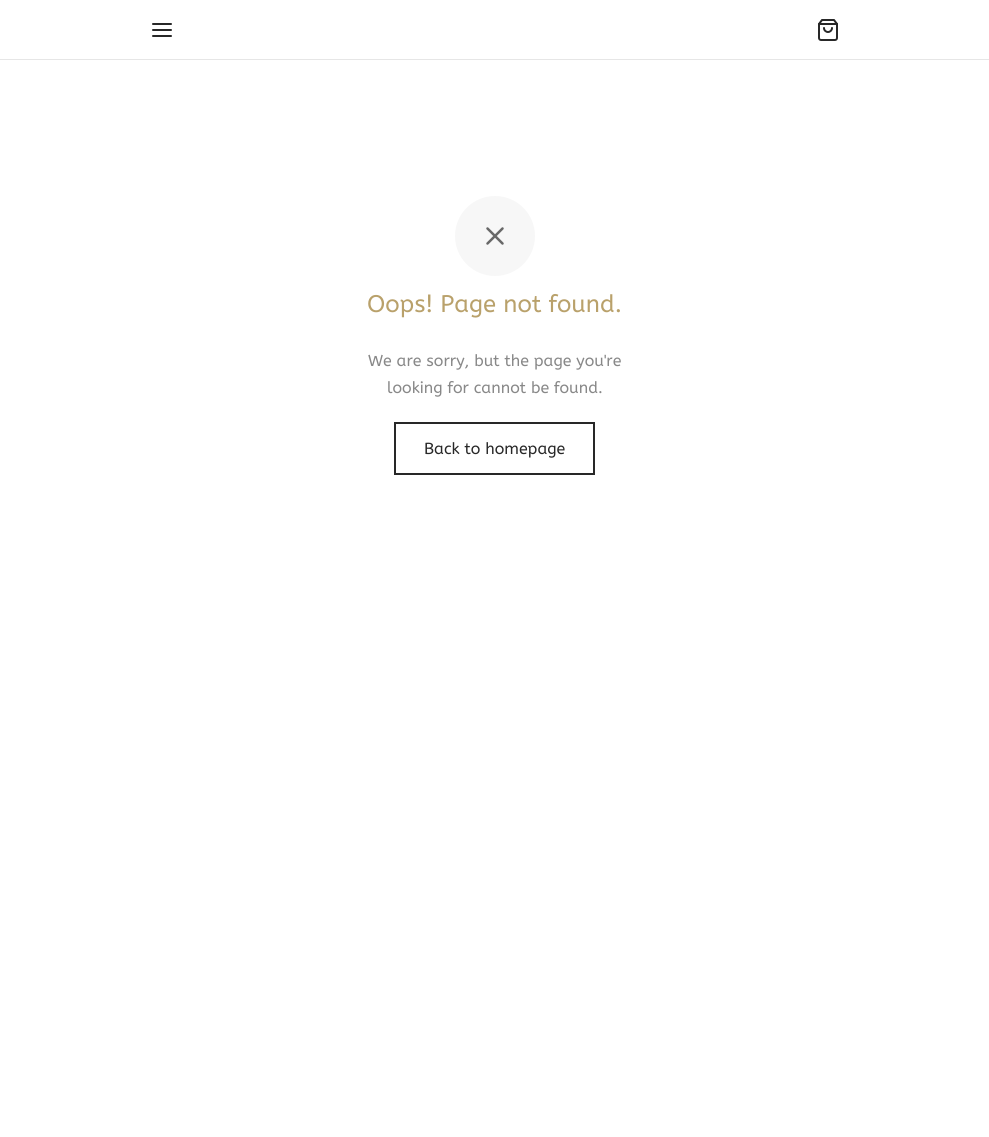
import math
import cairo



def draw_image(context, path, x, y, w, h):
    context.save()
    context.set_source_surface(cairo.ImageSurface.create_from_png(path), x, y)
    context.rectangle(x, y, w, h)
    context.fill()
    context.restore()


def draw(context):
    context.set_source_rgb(1, 1, 1)
    context.paint()
    context.new_path()
    context.move_to(153, 30)
    context.line_to(171, 30)
    context.move_to(153, 24)
    context.line_to(171, 24)
    context.move_to(153, 36)
    context.line_to(171, 36)
    context.set_source_rgb(40 / 255, 40 / 255, 40 / 255)
    context.set_line_cap(cairo.LineCap.ROUND)
    context.set_line_join(cairo.LineJoin.ROUND)
    context.stroke()
    draw_image(context, "images/1.png", 818, 19, 20, 22)
    context.set_source_rgb(230 / 255, 230 / 255, 230 / 255)
    context.rectangle(0, 59, 989, 1)
    context.fill()
    context.set_source_rgb(247 / 255, 247 / 255, 247 / 255)
    context.arc(495, 236, 40, 0, 2 * math.pi)
    context.fill()
    context.new_path()
    context.move_to(502.5, 228.5)
    context.line_to(487.5, 243.5)
    context.move_to(487.5, 228.5)
    context.line_to(502.5, 243.5)
    context.set_source_rgb(104 / 255, 104 / 255, 104 / 255)
    context.set_line_width(2.5)
    context.stroke()
    context.rectangle(395, 423, 199, 51)
    context.set_source_rgb(40 / 255, 40 / 255, 40 / 255)
    context.set_line_width(2)
    context.set_line_cap(cairo.LineCap.BUTT)
    context.set_line_join(cairo.LineJoin.MITER)
    context.stroke()
    context.select_font_face("ABeeZee")
    context.set_font_size(24)
    context.set_source_rgb(185 / 255, 161 / 255, 107 / 255)
    context.move_to(367, 312)
    context.show_text("Oops! Page not found.")
    context.set_font_size(16)
    context.set_source_rgb(136 / 255, 136 / 255, 136 / 255)
    context.move_to(368, 366)
    context.show_text("We are sorry, but the page you're")
    context.move_to(387, 393)
    context.show_text("looking for cannot be found.")
    context.set_source_rgb(40 / 255, 40 / 255, 40 / 255)
    context.move_to(424, 454)
    context.show_text("Back to homepage")


surface = cairo.ImageSurface(cairo.Format.RGB24, 989, 1137)
context = cairo.Context(surface)
options = cairo.FontOptions()
options.set_hint_metrics(cairo.HintMetrics.OFF)
options.set_hint_style(cairo.HintStyle.NONE)
context.set_font_options(options)
context.set_miter_limit(4)
draw(context)
surface.write_to_png("out.png")
